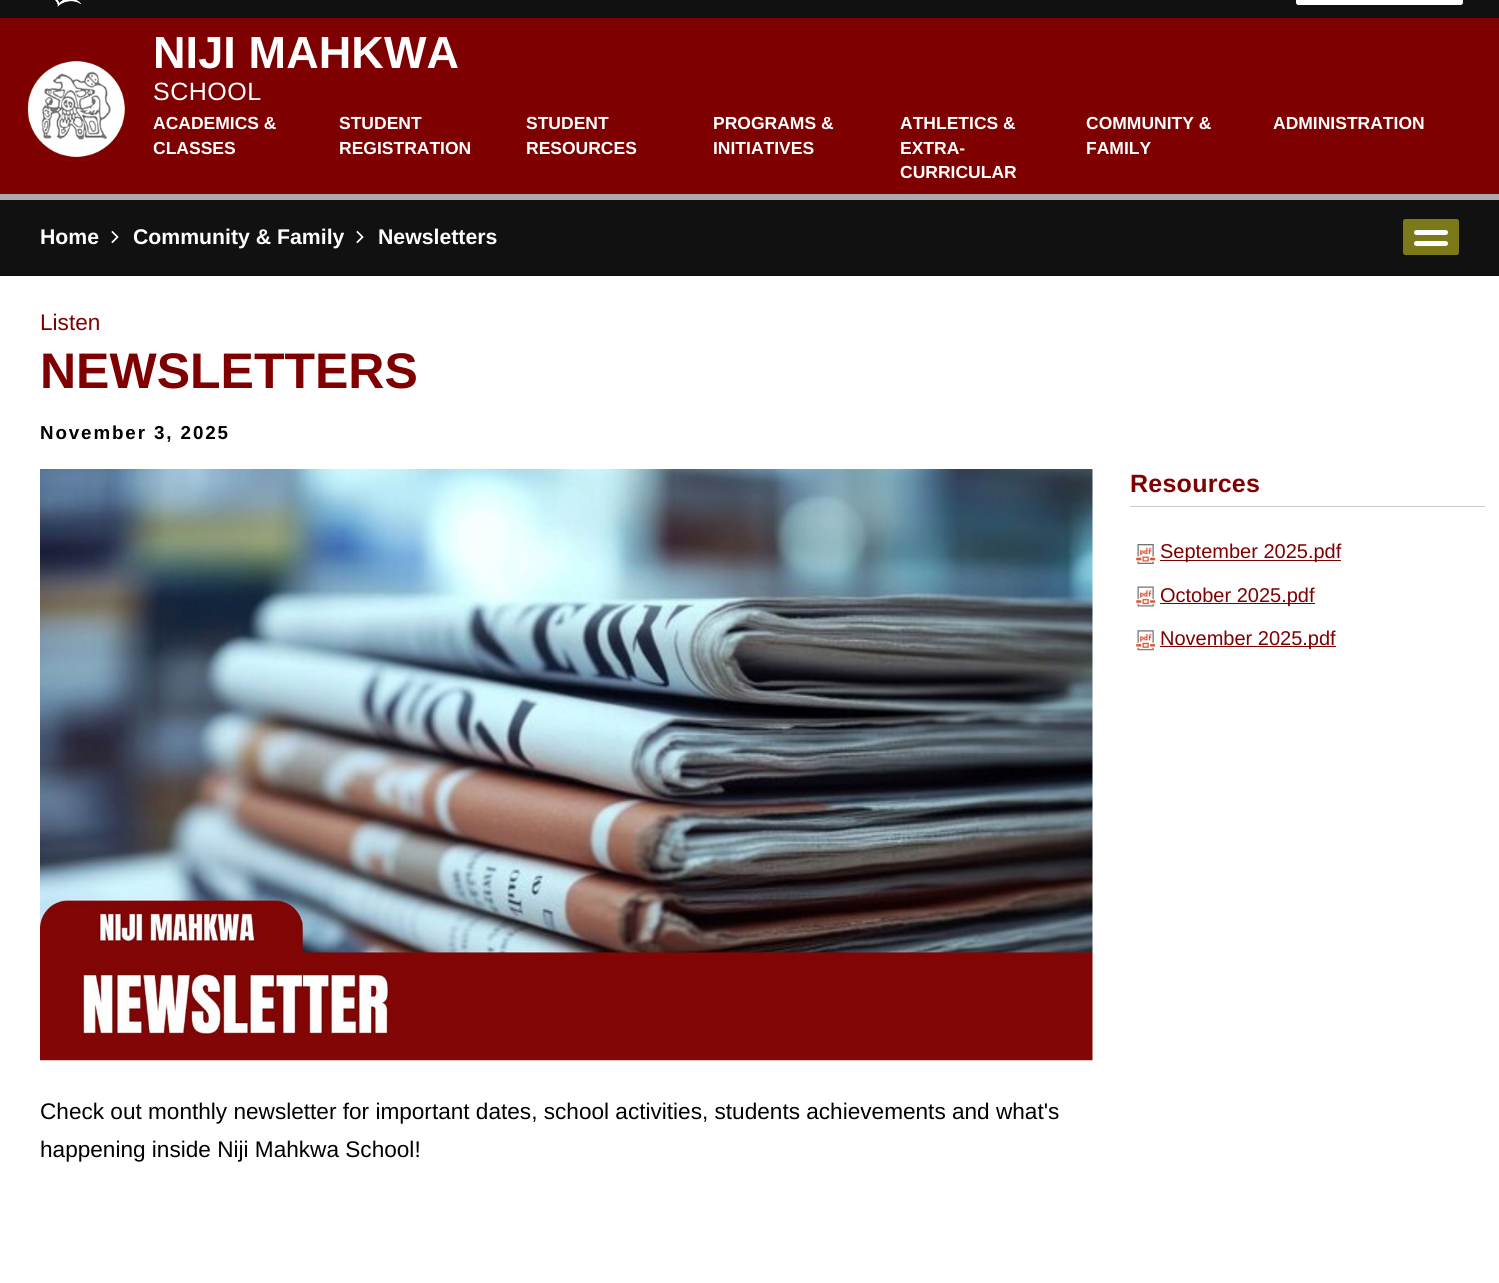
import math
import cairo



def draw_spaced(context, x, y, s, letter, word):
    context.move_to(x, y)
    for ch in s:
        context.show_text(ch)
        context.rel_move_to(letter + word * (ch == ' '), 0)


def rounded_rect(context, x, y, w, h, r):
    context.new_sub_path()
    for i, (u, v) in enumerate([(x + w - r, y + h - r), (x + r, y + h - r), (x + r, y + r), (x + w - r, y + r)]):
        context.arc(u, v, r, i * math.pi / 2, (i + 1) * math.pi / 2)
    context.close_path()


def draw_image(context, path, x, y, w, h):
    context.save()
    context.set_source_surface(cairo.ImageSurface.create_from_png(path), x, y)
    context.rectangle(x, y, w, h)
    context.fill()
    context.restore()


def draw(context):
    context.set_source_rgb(1, 1, 1)
    context.paint()
    context.set_source_rgb(17 / 255, 17 / 255, 17 / 255)
    context.rectangle(0, 0, 1499, 18)
    context.fill()
    draw_image(context, "images/1.png", 55, 0, 26, 7)
    context.set_source_rgb(1, 1, 1)
    rounded_rect(context, 1296, -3, 167, 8, 2.5)
    context.fill()
    context.set_source_rgb(127 / 255, 0, 0)
    context.rectangle(0, 18, 1499, 176)
    context.fill()
    context.set_source_rgb(171 / 255, 171 / 255, 171 / 255)
    context.rectangle(0, 194, 1499, 6)
    context.fill()
    draw_image(context, "images/2.png", 27, 57, 98, 104)
    context.set_source_rgb(17 / 255, 17 / 255, 17 / 255)
    context.rectangle(0, 200, 1499, 76)
    context.fill()
    draw_image(context, "images/3.png", 111, 230, 8, 14)
    draw_image(context, "images/3.png", 356, 230, 8, 14)
    context.set_source_rgb(123 / 255, 121 / 255, 24 / 255)
    rounded_rect(context, 1403, 219, 56, 36, 2.5)
    context.fill()
    context.set_source_rgb(1, 1, 1)
    rounded_rect(context, 1414, 230, 34, 5, 2.5)
    context.fill()
    rounded_rect(context, 1414, 241, 34, 5, 2.5)
    context.fill()
    context.set_source_rgb(200 / 255, 200 / 255, 200 / 255)
    context.rectangle(1130, 506, 355, 1)
    context.fill()
    draw_image(context, "images/4.png", 1136, 544, 20, 20)
    context.set_source_rgb(127 / 255, 0, 0)
    context.rectangle(1160, 560, 181, 1)
    context.fill()
    draw_image(context, "images/5.png", 1136, 586, 20, 21)
    context.rectangle(1160, 603, 155, 1)
    context.fill()
    draw_image(context, "images/6.png", 1136, 630, 20, 21)
    context.rectangle(1160, 646, 176, 1)
    context.fill()
    draw_image(context, "images/7.png", 40, 469, 1053, 592)
    context.select_font_face("Liberation Sans", cairo.FontSlant.NORMAL, cairo.FontWeight.BOLD)
    context.set_font_size(45)
    context.set_source_rgb(1, 1, 1)
    draw_spaced(context, 153, 68, "NIJI MAHKWA", 0.1, 0)
    context.select_font_face("Liberation Sans")
    context.set_font_size(25)
    draw_spaced(context, 153, 100, "SCHOOL", 0.5, 0)
    context.select_font_face("Liberation Sans", cairo.FontSlant.NORMAL, cairo.FontWeight.BOLD)
    context.set_font_size(17.5)
    context.move_to(153, 129)
    context.show_text("ACADEMICS &")
    context.move_to(153, 154)
    context.show_text("CLASSES")
    context.move_to(339, 129)
    context.show_text("STUDENT")
    context.move_to(339, 154)
    context.show_text("REGISTRATION")
    context.move_to(526, 129)
    context.show_text("STUDENT")
    context.move_to(526, 154)
    context.show_text("RESOURCES")
    context.move_to(713, 129)
    context.show_text("PROGRAMS &")
    context.move_to(713, 154)
    context.show_text("INITIATIVES")
    context.move_to(900, 129)
    context.show_text("ATHLETICS &")
    context.move_to(900, 154)
    context.show_text("EXTRA-")
    context.move_to(900, 178)
    context.show_text("CURRICULAR")
    context.move_to(1086, 129)
    context.show_text("COMMUNITY &")
    context.move_to(1086, 154)
    context.show_text("FAMILY")
    context.move_to(1273, 129)
    context.show_text("ADMINISTRATION")
    context.set_font_size(21.25)
    context.move_to(40, 244)
    context.show_text("Home")
    context.move_to(133, 244)
    context.show_text("Community & Family")
    context.move_to(378, 244)
    context.show_text("Newsletters")
    context.select_font_face("Liberation Sans")
    context.set_font_size(22.6)
    context.set_source_rgb(127 / 255, 0, 0)
    context.move_to(40, 330)
    context.show_text("Listen")
    context.select_font_face("Liberation Sans", cairo.FontSlant.NORMAL, cairo.FontWeight.BOLD)
    context.set_font_size(50)
    context.move_to(40, 388)
    context.show_text("NEWSLETTERS")
    context.set_font_size(18.75)
    context.set_source_rgb(0, 0, 0)
    draw_spaced(context, 40, 439, "November 3, 2025", 1.9, 0)
    context.set_font_size(25)
    context.set_source_rgb(127 / 255, 0, 0)
    draw_spaced(context, 1130, 492, "Resources", 0.25, 0)
    context.select_font_face("Liberation Sans")
    context.set_font_size(20)
    context.move_to(1160, 558)
    context.show_text("September 2025.pdf")
    context.move_to(1160, 602)
    context.show_text("October 2025.pdf")
    context.move_to(1160, 645)
    context.show_text("November 2025.pdf")
    context.set_font_size(22.6)
    context.set_source_rgb(0, 0, 0)
    context.move_to(40, 1119)
    context.show_text("Check out monthly newsletter for important dates, school activities, students achievements and what's")
    context.move_to(40, 1157)
    context.show_text("happening inside Niji Mahkwa School!")


surface = cairo.ImageSurface(cairo.Format.RGB24, 1499, 1283)
context = cairo.Context(surface)
options = cairo.FontOptions()
options.set_hint_metrics(cairo.HintMetrics.OFF)
options.set_hint_style(cairo.HintStyle.NONE)
context.set_font_options(options)
context.set_miter_limit(4)
draw(context)
surface.write_to_png("out.png")
